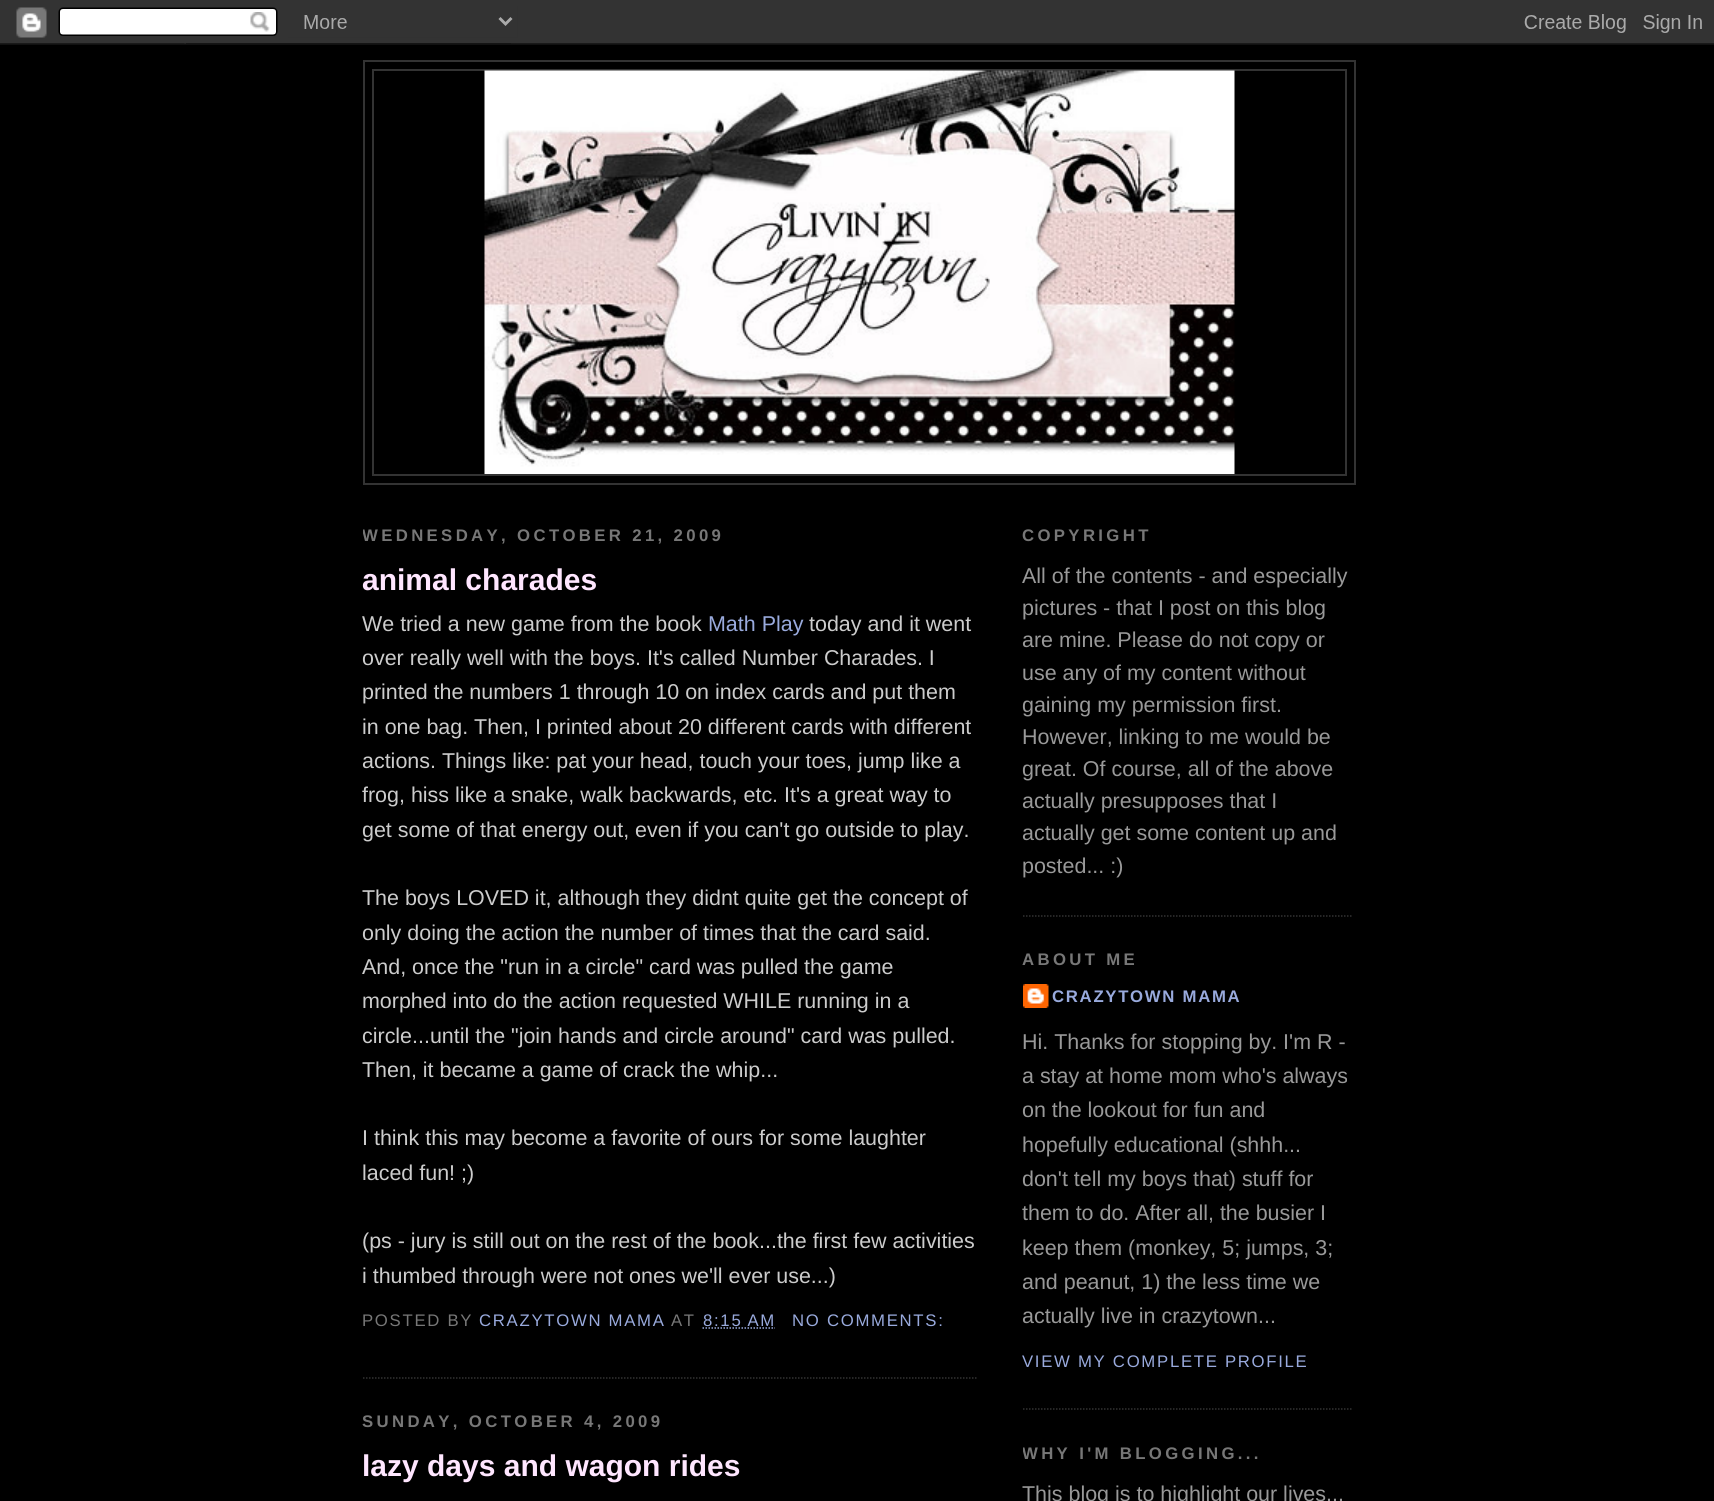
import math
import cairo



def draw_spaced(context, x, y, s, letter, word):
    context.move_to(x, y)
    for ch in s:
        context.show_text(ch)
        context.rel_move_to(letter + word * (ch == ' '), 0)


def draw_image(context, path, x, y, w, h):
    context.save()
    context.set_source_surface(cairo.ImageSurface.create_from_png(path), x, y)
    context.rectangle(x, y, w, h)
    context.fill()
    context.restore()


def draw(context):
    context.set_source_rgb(0, 0, 0)
    context.paint()
    draw_image(context, "images/1.png", 0, 0, 1714, 45)
    context.rectangle(364, 61, 991, 423)
    context.set_source_rgb(51 / 255, 51 / 255, 51 / 255)
    context.stroke()
    context.rectangle(373, 70, 973, 405)
    context.stroke()
    draw_image(context, "images/2.png", 484, 70, 751, 404)
    context.new_path()
    context.move_to(363, 1378)
    context.line_to(978, 1378)
    context.set_line_width(1.5)
    context.set_dash([1.5, 1.5])
    context.stroke()
    context.new_path()
    context.move_to(702.5, 1328)
    context.line_to(775, 1328)
    context.set_source_rgb(153 / 255, 170 / 255, 221 / 255)
    context.stroke()
    context.new_path()
    context.move_to(1023, 916)
    context.line_to(1353, 916)
    context.set_source_rgb(51 / 255, 51 / 255, 51 / 255)
    context.stroke()
    context.new_path()
    context.move_to(1023, 1409)
    context.line_to(1353, 1409)
    context.stroke()
    draw_image(context, "images/3.png", 1023, 984, 26, 24)
    context.save()
    context.rectangle(363, 500, 615, 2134)
    context.clip()
    context.select_font_face("Liberation Sans", cairo.FontSlant.NORMAL, cairo.FontWeight.BOLD)
    context.set_font_size(16.75)
    context.set_source_rgb(119 / 255, 119 / 255, 119 / 255)
    draw_spaced(context, 362, 541, "WEDNESDAY, OCTOBER 21, 2009", 3.35, 0)
    context.restore()
    context.select_font_face("Liberation Sans", cairo.FontSlant.NORMAL, cairo.FontWeight.BOLD)
    context.set_font_size(30)
    context.set_source_rgb(1, 230 / 255, 1)
    context.move_to(362, 590)
    context.show_text("animal charades")
    context.select_font_face("Liberation Sans")
    context.set_font_size(21.45)
    context.set_source_rgb(204 / 255, 204 / 255, 204 / 255)
    context.move_to(362, 631)
    context.show_text("We tried a new game from the book")
    context.set_source_rgb(153 / 255, 170 / 255, 221 / 255)
    context.move_to(708, 631)
    context.show_text("Math Play")
    context.set_source_rgb(204 / 255, 204 / 255, 204 / 255)
    context.move_to(809, 631)
    context.show_text("today and it went")
    context.move_to(362, 665)
    context.show_text("over really well with the boys. It's called Number Charades. I")
    context.move_to(362, 699)
    context.show_text("printed the numbers 1 through 10 on index cards and put them")
    context.move_to(362, 734)
    context.show_text("in one bag. Then, I printed about 20 different cards with different")
    context.move_to(362, 768)
    context.show_text("actions. Things like: pat your head, touch your toes, jump like a")
    context.move_to(362, 802)
    context.show_text("frog, hiss like a snake, walk backwards, etc. It's a great way to")
    context.move_to(362, 837)
    context.show_text("get some of that energy out, even if you can't go outside to play.")
    context.move_to(362, 905)
    context.show_text("The boys LOVED it, although they didnt quite get the concept of")
    context.move_to(362, 940)
    context.show_text("only doing the action the number of times that the card said.")
    context.move_to(362, 974)
    context.show_text("And, once the \"run in a circle\" card was pulled the game")
    context.move_to(362, 1008)
    context.show_text("morphed into do the action requested WHILE running in a")
    context.move_to(362, 1043)
    context.show_text("circle...until the \"join hands and circle around\" card was pulled.")
    context.move_to(362, 1077)
    context.show_text("Then, it became a game of crack the whip...")
    context.move_to(362, 1145)
    context.show_text("I think this may become a favorite of ours for some laughter")
    context.move_to(362, 1180)
    context.show_text("laced fun! ;)")
    context.move_to(362, 1248)
    context.show_text("(ps - jury is still out on the rest of the book...the first few activities")
    context.move_to(362, 1283)
    context.show_text("i thumbed through were not ones we'll ever use...)")
    context.set_font_size(16.75)
    context.set_source_rgb(119 / 255, 119 / 255, 119 / 255)
    draw_spaced(context, 362, 1326, "POSTED BY", 1.7, 0)
    context.set_source_rgb(153 / 255, 170 / 255, 221 / 255)
    draw_spaced(context, 479, 1326, "CRAZYTOWN MAMA", 1.7, 0)
    context.set_source_rgb(119 / 255, 119 / 255, 119 / 255)
    draw_spaced(context, 671, 1326, "AT", 1.7, 0)
    context.set_source_rgb(153 / 255, 170 / 255, 221 / 255)
    draw_spaced(context, 703, 1326, "8:15 AM", 1.7, 0)
    draw_spaced(context, 792, 1326, "NO COMMENTS:", 1.7, 0)
    context.select_font_face("Liberation Sans", cairo.FontSlant.NORMAL, cairo.FontWeight.BOLD)
    context.set_source_rgb(119 / 255, 119 / 255, 119 / 255)
    draw_spaced(context, 362, 1427, "SUNDAY, OCTOBER 4, 2009", 3.35, 0)
    context.set_font_size(30)
    context.set_source_rgb(1, 230 / 255, 1)
    context.move_to(362, 1476)
    context.show_text("lazy days and wagon rides")
    context.set_font_size(16.75)
    context.set_source_rgb(119 / 255, 119 / 255, 119 / 255)
    draw_spaced(context, 1022, 541, "COPYRIGHT", 3.35, 0)
    context.select_font_face("Liberation Sans")
    context.set_font_size(21.45)
    context.set_source_rgb(153 / 255, 153 / 255, 153 / 255)
    context.move_to(1022, 583)
    context.show_text("All of the contents - and especially")
    context.move_to(1022, 615)
    context.show_text("pictures - that I post on this blog")
    context.move_to(1022, 647)
    context.show_text("are mine. Please do not copy or")
    context.move_to(1022, 680)
    context.show_text("use any of my content without")
    context.move_to(1022, 712)
    context.show_text("gaining my permission first.")
    context.move_to(1022, 744)
    context.show_text("However, linking to me would be")
    context.move_to(1022, 776)
    context.show_text("great. Of course, all of the above")
    context.move_to(1022, 808)
    context.show_text("actually presupposes that I")
    context.move_to(1022, 840)
    context.show_text("actually get some content up and")
    context.move_to(1022, 873)
    context.show_text("posted... :)")
    context.select_font_face("Liberation Sans", cairo.FontSlant.NORMAL, cairo.FontWeight.BOLD)
    context.set_font_size(16.75)
    context.set_source_rgb(119 / 255, 119 / 255, 119 / 255)
    draw_spaced(context, 1022, 965, "ABOUT ME", 3.35, 0)
    context.set_source_rgb(153 / 255, 170 / 255, 221 / 255)
    draw_spaced(context, 1052, 1002, "CRAZYTOWN MAMA", 1.7, 0)
    context.select_font_face("Liberation Sans")
    context.set_font_size(21.45)
    context.set_source_rgb(153 / 255, 153 / 255, 153 / 255)
    context.move_to(1022, 1049)
    context.show_text("Hi. Thanks for stopping by. I'm R -")
    context.move_to(1022, 1083)
    context.show_text("a stay at home mom who's always")
    context.move_to(1022, 1117)
    context.show_text("on the lookout for fun and")
    context.move_to(1022, 1152)
    context.show_text("hopefully educational (shhh...")
    context.move_to(1022, 1186)
    context.show_text("don't tell my boys that) stuff for")
    context.move_to(1022, 1220)
    context.show_text("them to do. After all, the busier I")
    context.move_to(1022, 1255)
    context.show_text("keep them (monkey, 5; jumps, 3;")
    context.move_to(1022, 1289)
    context.show_text("and peanut, 1) the less time we")
    context.move_to(1022, 1323)
    context.show_text("actually live in crazytown...")
    context.set_font_size(16.75)
    context.set_source_rgb(153 / 255, 170 / 255, 221 / 255)
    draw_spaced(context, 1022, 1367, "VIEW MY COMPLETE PROFILE", 1.7, 0)
    context.save()
    context.rectangle(1023, 500, 330, 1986)
    context.clip()
    context.select_font_face("Liberation Sans", cairo.FontSlant.NORMAL, cairo.FontWeight.BOLD)
    context.set_source_rgb(119 / 255, 119 / 255, 119 / 255)
    draw_spaced(context, 1022, 1459, "WHY I'M BLOGGING...", 3.35, 0)
    context.restore()
    context.set_font_size(21.45)
    context.set_source_rgb(153 / 255, 153 / 255, 153 / 255)
    context.move_to(1022, 1501)
    context.show_text("This blog is to highlight our lives...")


surface = cairo.ImageSurface(cairo.Format.RGB24, 1714, 1501)
context = cairo.Context(surface)
options = cairo.FontOptions()
options.set_hint_metrics(cairo.HintMetrics.OFF)
options.set_hint_style(cairo.HintStyle.NONE)
context.set_font_options(options)
context.set_miter_limit(4)
draw(context)
surface.write_to_png("out.png")
